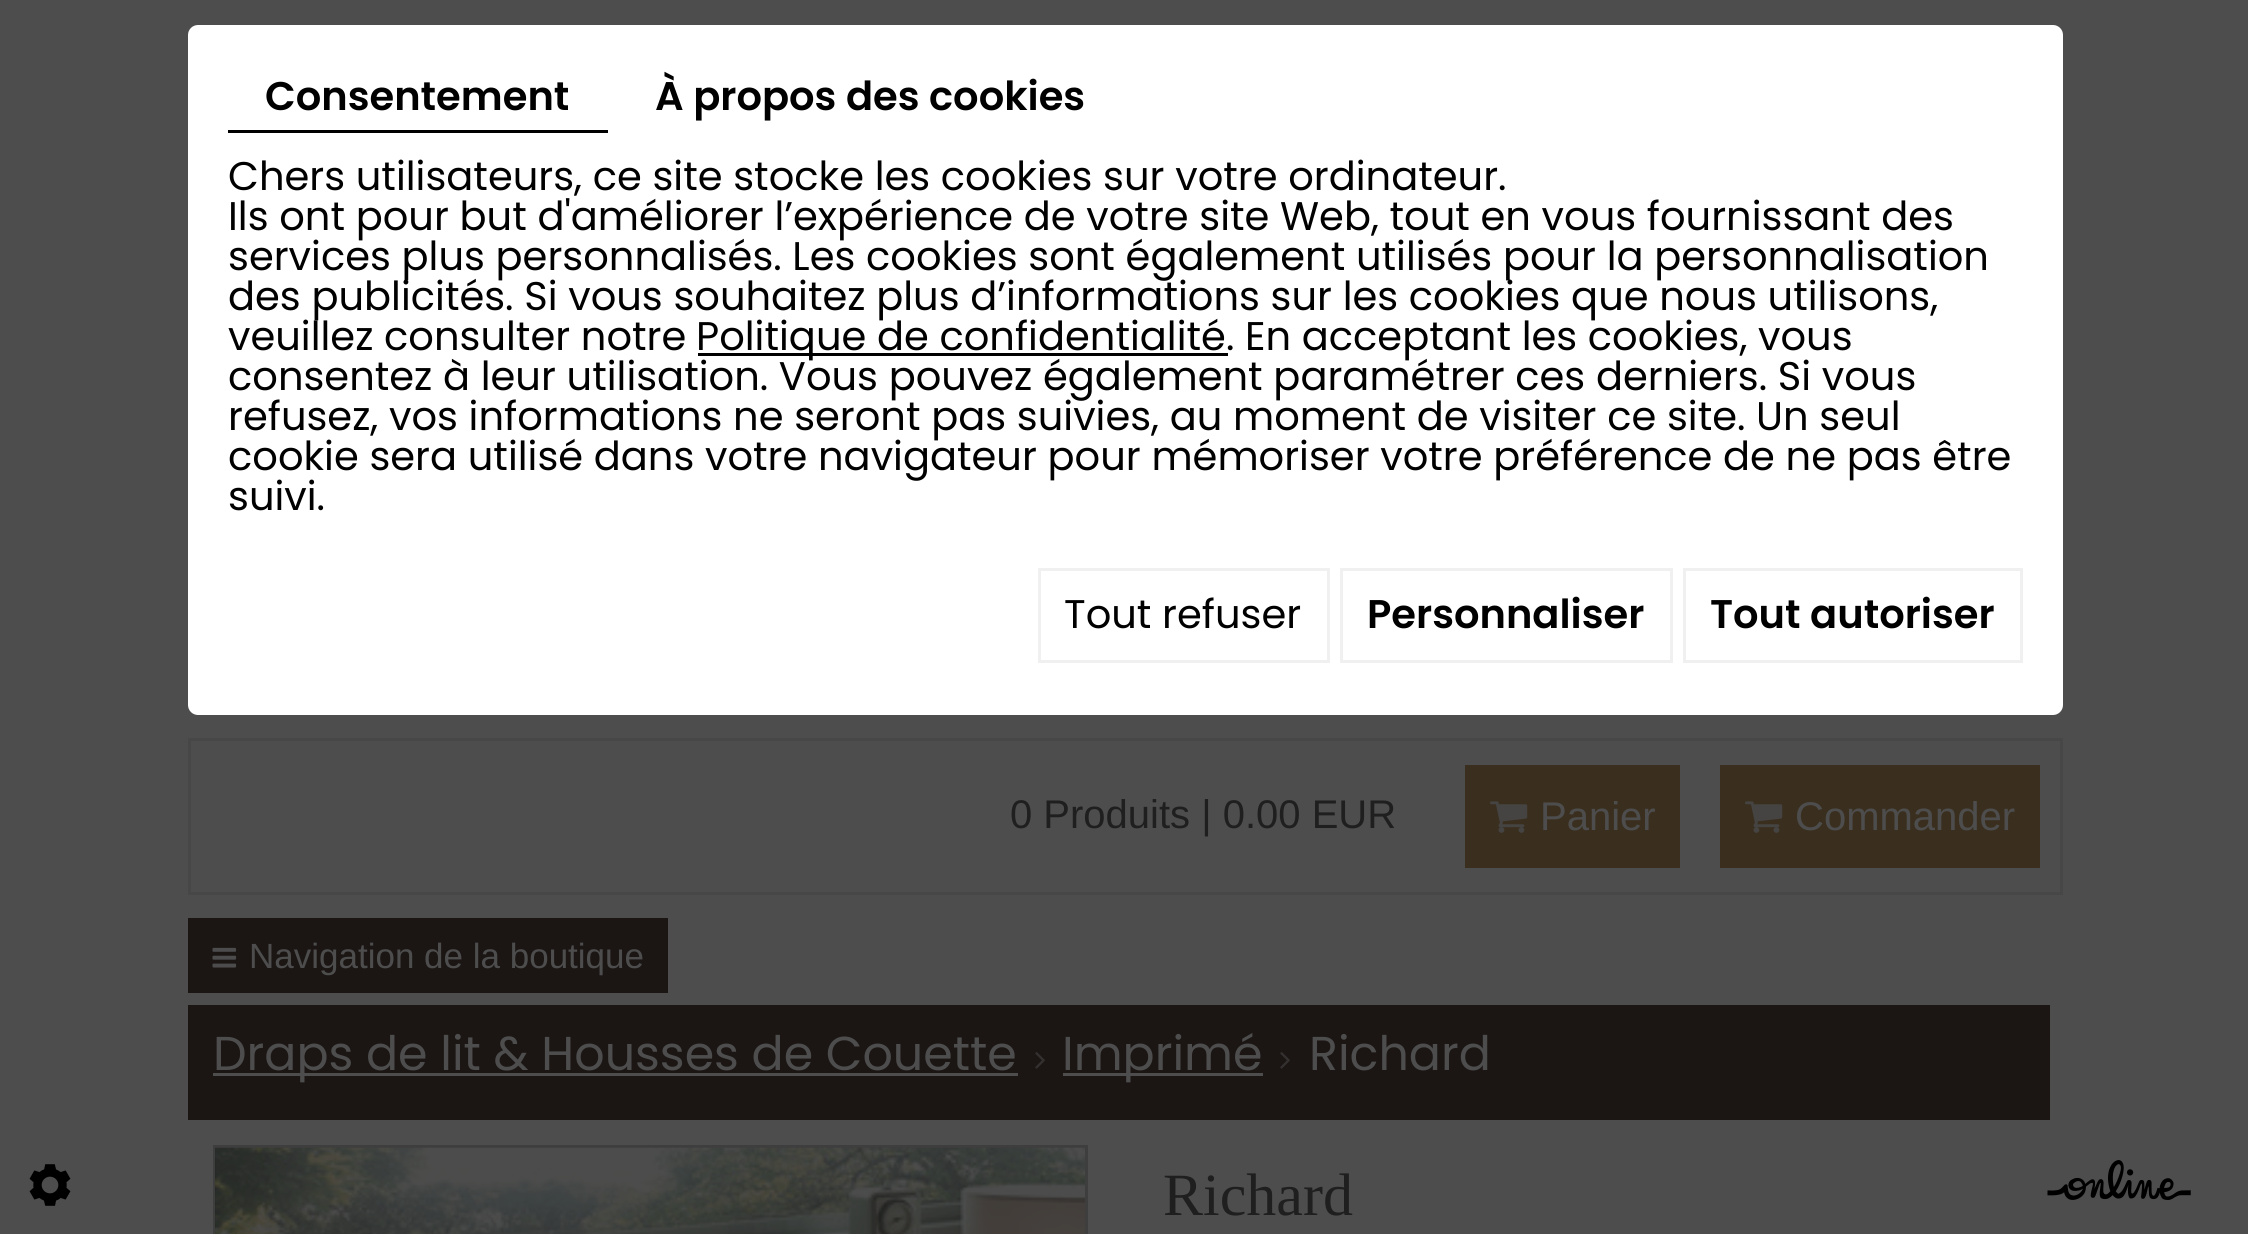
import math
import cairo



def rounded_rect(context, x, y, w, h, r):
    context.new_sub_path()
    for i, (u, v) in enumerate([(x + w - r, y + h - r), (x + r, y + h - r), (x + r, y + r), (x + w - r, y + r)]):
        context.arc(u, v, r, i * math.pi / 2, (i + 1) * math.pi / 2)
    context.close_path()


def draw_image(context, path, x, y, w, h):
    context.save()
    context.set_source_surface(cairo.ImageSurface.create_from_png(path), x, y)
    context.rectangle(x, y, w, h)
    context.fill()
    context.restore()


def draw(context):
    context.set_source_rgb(77 / 255, 77 / 255, 77 / 255)
    context.paint()
    context.set_source_rgb(1, 1, 1)
    rounded_rect(context, 188, 25, 1875, 690, 10)
    context.fill()
    context.set_source_rgb(0, 0, 0)
    context.rectangle(228, 130, 380, 3)
    context.fill()
    context.rectangle(698, 353, 530, 3)
    context.fill()
    context.rectangle(1039.5, 569.5, 289, 92)
    context.set_source_rgb(240 / 255, 240 / 255, 240 / 255)
    context.set_line_width(3)
    context.stroke()
    context.rectangle(1341.5, 569.5, 330, 92)
    context.stroke()
    context.rectangle(1684.5, 569.5, 337, 92)
    context.stroke()
    draw_image(context, "images/1.png", 29, 1164, 42, 42)
    context.rectangle(189.5, 739.5, 1872, 154)
    context.set_source_rgb(71 / 255, 71 / 255, 71 / 255)
    context.stroke()
    context.set_source_rgb(58 / 255, 47 / 255, 31 / 255)
    context.rectangle(1465, 765, 215, 103)
    context.fill()
    draw_image(context, "images/2.png", 1490, 801, 38, 32)
    context.rectangle(1720, 765, 320, 103)
    context.fill()
    draw_image(context, "images/2.png", 1745, 801, 38, 32)
    context.set_source_rgb(27 / 255, 22 / 255, 20 / 255)
    context.rectangle(188, 918, 480, 75)
    context.fill()
    draw_image(context, "images/3.png", 212, 947, 25, 21)
    context.rectangle(188, 1005, 1862, 115)
    context.fill()
    context.set_source_rgb(77 / 255, 77 / 255, 77 / 255)
    context.rectangle(213, 1073, 805, 3)
    context.fill()
    draw_image(context, "images/4.png", 1035, 1052, 10, 17)
    context.rectangle(1063, 1073, 200, 3)
    context.fill()
    draw_image(context, "images/4.png", 1280, 1052, 10, 17)
    context.rectangle(214.5, 1146.5, 872, 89)
    context.set_source_rgb(63 / 255, 62 / 255, 63 / 255)
    context.stroke()
    draw_image(context, "images/5.png", 215, 1147, 870, 87)
    draw_image(context, "images/6.png", 2047, 1160, 144, 40)
    context.select_font_face("Poppins SemiBold")
    context.set_font_size(40)
    context.set_source_rgb(0, 0, 0)
    context.move_to(265, 110)
    context.show_text("Consentement")
    context.move_to(655, 110)
    context.show_text("À propos des cookies")
    context.select_font_face("Poppins")
    context.move_to(228, 190)
    context.show_text("Chers utilisateurs, ce site stocke les cookies sur votre ordinateur.")
    context.move_to(228, 230)
    context.show_text("Ils ont pour but d'améliorer l’expérience de votre site Web, tout en vous fournissant des")
    context.move_to(228, 270)
    context.show_text("services plus personnalisés. Les cookies sont également utilisés pour la personnalisation")
    context.move_to(228, 310)
    context.show_text("des publicités. Si vous souhaitez plus d’informations sur les cookies que nous utilisons,")
    context.move_to(228, 350)
    context.show_text("veuillez consulter notre")
    context.move_to(696, 350)
    context.show_text("Politique de confidentialité. En acceptant les cookies, vous")
    context.move_to(228, 390)
    context.show_text("consentez à leur utilisation. Vous pouvez également paramétrer ces derniers. Si vous")
    context.move_to(228, 430)
    context.show_text("refusez, vos informations ne seront pas suivies, au moment de visiter ce site. Un seul")
    context.move_to(228, 470)
    context.show_text("cookie sera utilisé dans votre navigateur pour mémoriser votre préférence de ne pas être")
    context.move_to(228, 510)
    context.show_text("suivi.")
    context.move_to(1064, 628)
    context.show_text("Tout refuser")
    context.select_font_face("Poppins SemiBold")
    context.move_to(1367, 628)
    context.show_text("Personnaliser")
    context.move_to(1710, 628)
    context.show_text("Tout autoriser")
    context.select_font_face("Liberation Sans")
    context.set_source_rgb(31 / 255, 31 / 255, 31 / 255)
    context.move_to(1010, 828)
    context.show_text("0 Produits | 0.00 EUR")
    context.set_source_rgb(77 / 255, 77 / 255, 77 / 255)
    context.move_to(1540, 830)
    context.show_text("Panier")
    context.move_to(1795, 830)
    context.show_text("Commander")
    context.set_font_size(35)
    context.move_to(249, 968)
    context.show_text("Navigation de la boutique")
    context.select_font_face("Poppins")
    context.set_font_size(47.5)
    context.move_to(213, 1070)
    context.show_text("Draps de lit & Housses de Couette")
    context.move_to(1062, 1070)
    context.show_text("Imprimé")
    context.move_to(1309, 1070)
    context.show_text("Richard")
    context.select_font_face("Liberation Serif")
    context.set_font_size(60)
    context.set_source_rgb(31 / 255, 31 / 255, 31 / 255)
    context.move_to(1163, 1215)
    context.show_text("Richard")


surface = cairo.ImageSurface(cairo.Format.RGB24, 2248, 1234)
context = cairo.Context(surface)
options = cairo.FontOptions()
options.set_hint_metrics(cairo.HintMetrics.OFF)
options.set_hint_style(cairo.HintStyle.NONE)
context.set_font_options(options)
context.set_miter_limit(4)
draw(context)
surface.write_to_png("out.png")
